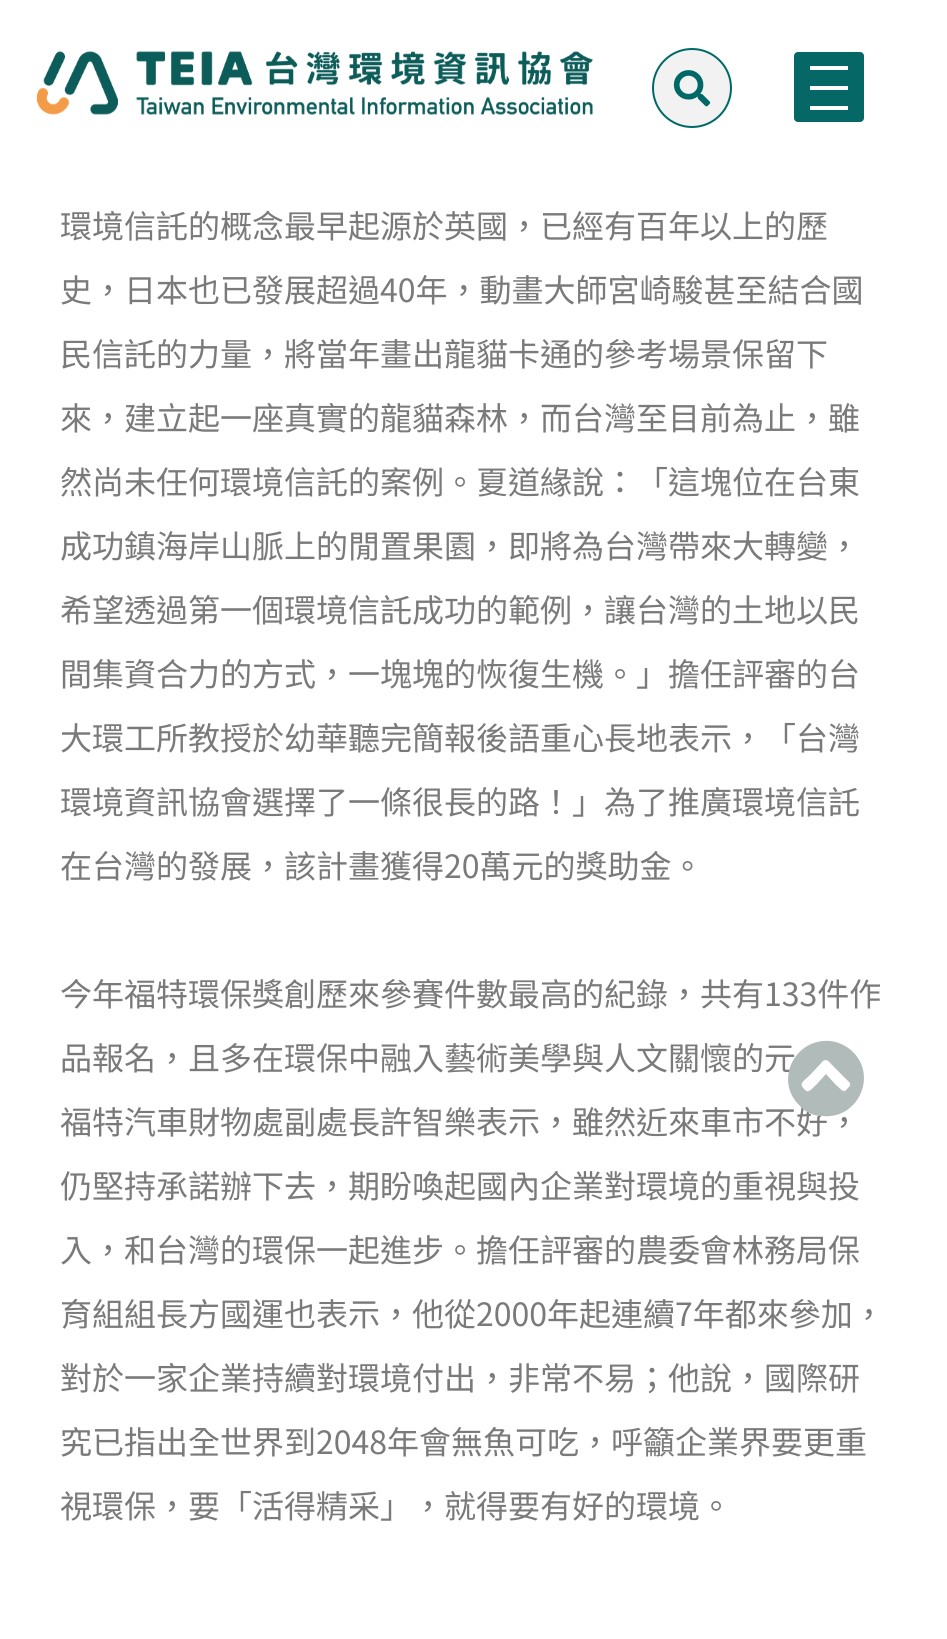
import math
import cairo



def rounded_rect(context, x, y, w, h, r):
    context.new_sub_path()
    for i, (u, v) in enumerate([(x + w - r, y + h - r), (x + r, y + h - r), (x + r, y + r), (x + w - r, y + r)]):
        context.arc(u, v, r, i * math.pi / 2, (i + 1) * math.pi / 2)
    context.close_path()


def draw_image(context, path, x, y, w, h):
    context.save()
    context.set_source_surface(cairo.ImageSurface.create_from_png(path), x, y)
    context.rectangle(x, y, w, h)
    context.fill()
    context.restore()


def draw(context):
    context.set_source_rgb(1, 1, 1)
    context.paint()
    draw_image(context, "images/1.png", 36, 51, 557, 64)
    context.set_source_rgb(242 / 255, 242 / 255, 242 / 255)
    context.arc(692, 88, 39, 0, 2 * math.pi)
    context.fill_preserve()
    context.set_source_rgb(0, 104 / 255, 103 / 255)
    context.stroke()
    draw_image(context, "images/2.png", 673, 70, 38, 37)
    context.set_source_rgb(5 / 255, 104 / 255, 103 / 255)
    rounded_rect(context, 794, 52, 70, 70, 4)
    context.fill()
    context.set_source_rgb(254 / 255, 254 / 255, 254 / 255)
    context.rectangle(810, 86, 38, 4)
    context.fill()
    context.rectangle(810, 66, 38, 4)
    context.fill()
    context.rectangle(810, 106, 38, 4)
    context.fill()
    context.select_font_face("Noto Sans TC")
    context.set_font_size(32)
    context.set_source_rgb(122 / 255, 122 / 255, 122 / 255)
    context.move_to(60, 238)
    context.show_text("環境信託的概念最早起源於英國，已經有百年以上的歷")
    context.move_to(60, 302)
    context.show_text("史，日本也已發展超過40年，動畫大師宮崎駿甚至結合國")
    context.move_to(60, 366)
    context.show_text("民信託的力量，將當年畫出龍貓卡通的參考場景保留下")
    context.move_to(60, 430)
    context.show_text("來，建立起一座真實的龍貓森林，而台灣至目前為止，雖")
    context.move_to(60, 494)
    context.show_text("然尚未任何環境信託的案例。夏道緣說：「這塊位在台東")
    context.move_to(60, 558)
    context.show_text("成功鎮海岸山脈上的閒置果園，即將為台灣帶來大轉變，")
    context.move_to(60, 622)
    context.show_text("希望透過第一個環境信託成功的範例，讓台灣的土地以民")
    context.move_to(60, 686)
    context.show_text("間集資合力的方式，一塊塊的恢復生機。」擔任評審的台")
    context.move_to(60, 750)
    context.show_text("大環工所教授於幼華聽完簡報後語重心長地表示，「台灣")
    context.move_to(60, 814)
    context.show_text("環境資訊協會選擇了一條很長的路！」為了推廣環境信託")
    context.move_to(60, 878)
    context.show_text("在台灣的發展，該計畫獲得20萬元的獎助金。")
    context.move_to(60, 1006)
    context.show_text("今年福特環保獎創歷來參賽件數最高的紀錄，共有133件作")
    context.move_to(60, 1070)
    context.show_text("品報名，且多在環保中融入藝術美學與人文關懷的元")
    context.move_to(60, 1134)
    context.show_text("福特汽車財物處副處長許智樂表示，雖然近來車市不好，")
    context.move_to(60, 1198)
    context.show_text("仍堅持承諾辦下去，期盼喚起國內企業對環境的重視與投")
    context.move_to(60, 1262)
    context.show_text("入，和台灣的環保一起進步。擔任評審的農委會林務局保")
    context.move_to(60, 1326)
    context.show_text("育組組長方國運也表示，他從2000年起連續7年都來參加，")
    context.move_to(60, 1390)
    context.show_text("對於一家企業持續對環境付出，非常不易；他說，國際研")
    context.move_to(60, 1454)
    context.show_text("究已指出全世界到2048年會無魚可吃，呼籲企業界要更重")
    context.move_to(60, 1518)
    context.show_text("視環保，要「活得精采」，就得要有好的環境。")
    context.set_source_rgb(177 / 255, 187 / 255, 186 / 255)
    context.new_path()
    context.move_to(799, 1105)
    context.curve_to(774, 1080, 795, 1038, 830, 1041)
    context.curve_to(839, 1042, 847, 1046, 853, 1052)
    context.curve_to(878, 1077, 857, 1120, 822, 1116)
    context.curve_to(813, 1116, 805, 1112, 799, 1105)
    context.close_path()
    context.move_to(823, 1061)
    context.line_to(810, 1075)
    context.curve_to(803, 1082, 798, 1083, 805, 1090)
    context.curve_to(809, 1094, 813, 1087, 816, 1085)
    context.line_to(826, 1074)
    context.line_to(836, 1085)
    context.curve_to(838, 1086, 842, 1092, 845, 1091)
    context.line_to(848, 1088)
    context.curve_to(852, 1084, 850, 1083, 846, 1079)
    context.line_to(832, 1065)
    context.curve_to(830, 1063, 827, 1058, 823, 1061)
    context.close_path()
    context.fill()


surface = cairo.ImageSurface(cairo.Format.RGB24, 947, 1639)
context = cairo.Context(surface)
options = cairo.FontOptions()
options.set_hint_metrics(cairo.HintMetrics.OFF)
options.set_hint_style(cairo.HintStyle.NONE)
context.set_font_options(options)
context.set_miter_limit(4)
draw(context)
surface.write_to_png("out.png")
